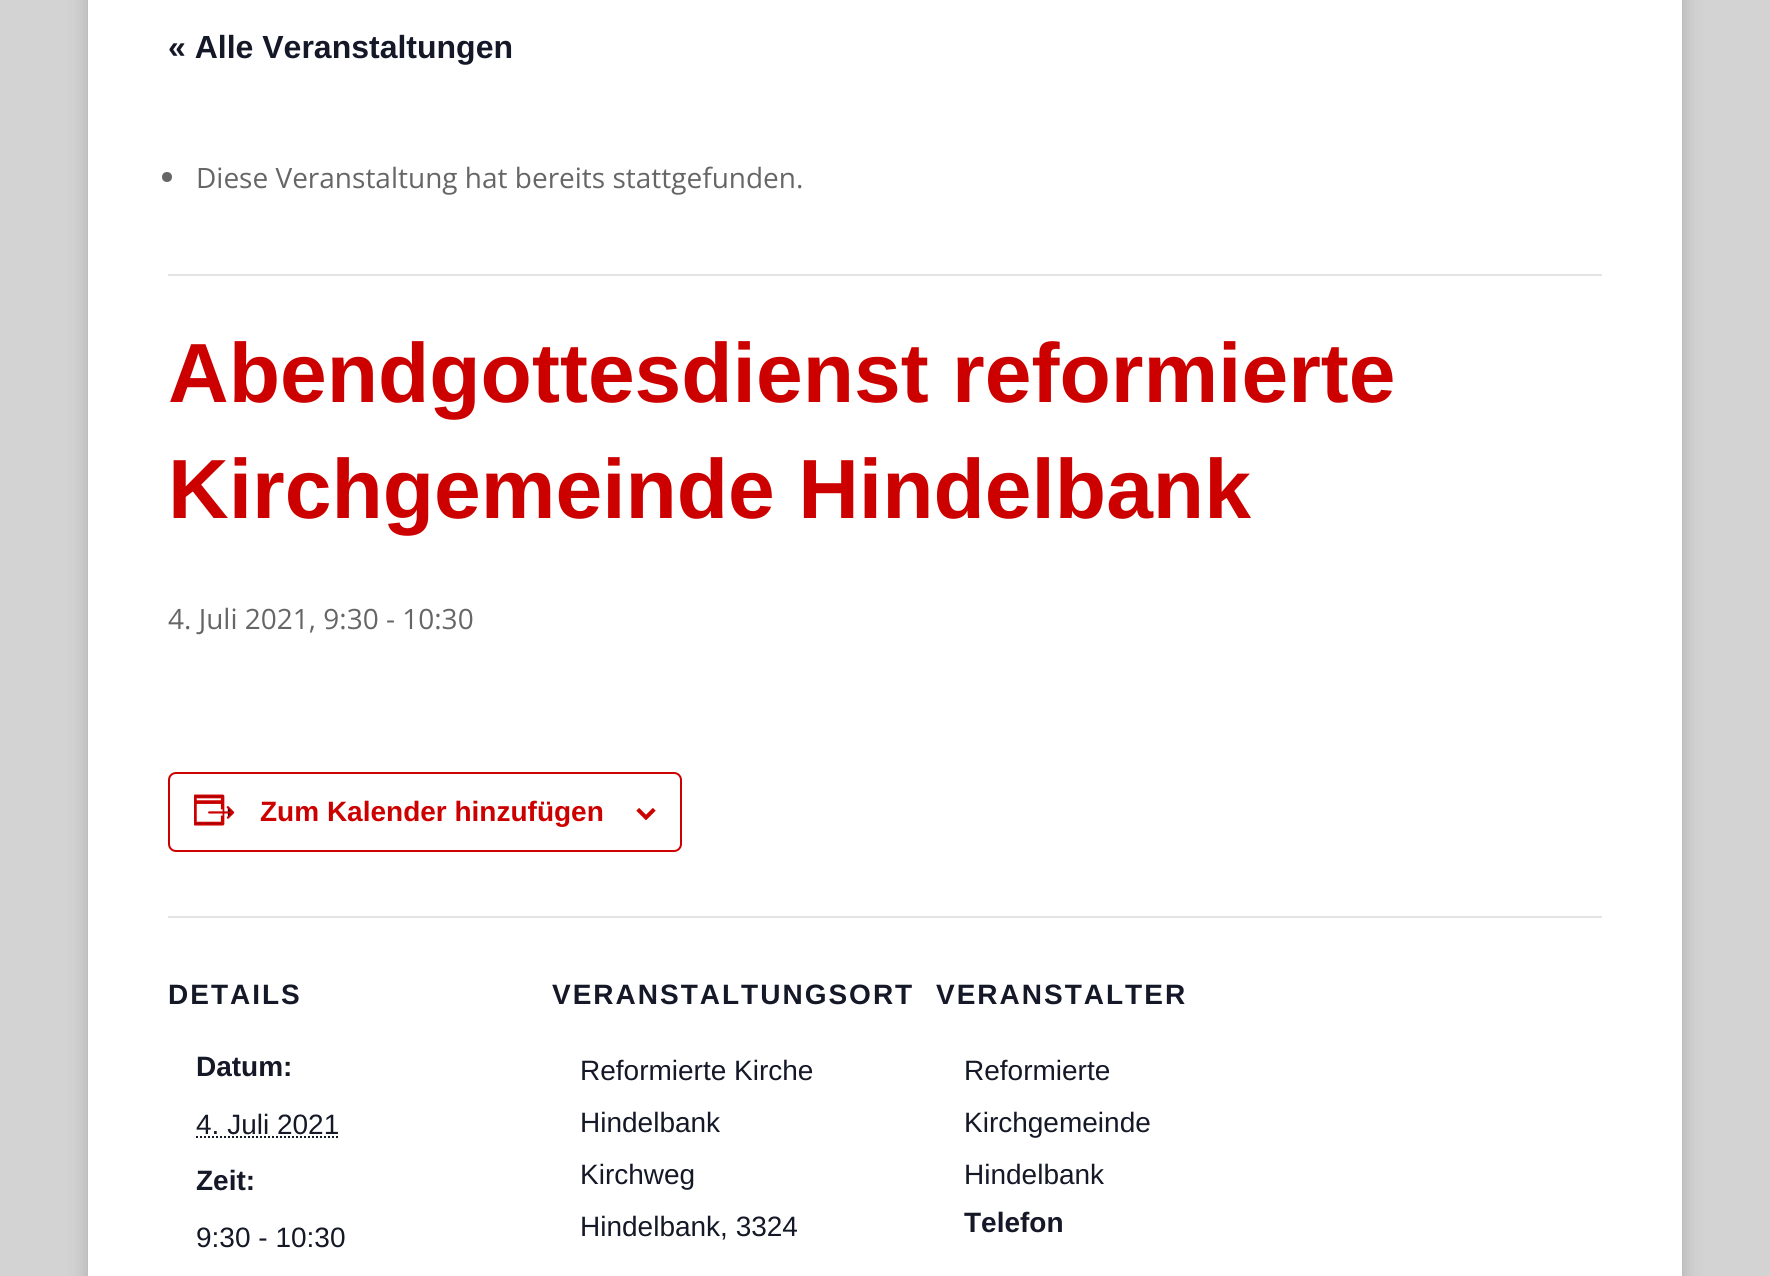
import math
import cairo



def draw_spaced(context, x, y, s, letter, word):
    context.move_to(x, y)
    for ch in s:
        context.show_text(ch)
        context.rel_move_to(letter + word * (ch == ' '), 0)


def rounded_rect(context, x, y, w, h, r):
    context.new_sub_path()
    for i, (u, v) in enumerate([(x + w - r, y + h - r), (x + r, y + h - r), (x + r, y + r), (x + w - r, y + r)]):
        context.arc(u, v, r, i * math.pi / 2, (i + 1) * math.pi / 2)
    context.close_path()


def draw_shadow(context, x, y, w, h, r, blur, alpha):
    context.push_group_with_content(cairo.Content.ALPHA)
    context.set_operator(cairo.Operator.SOURCE)
    for i in range(15, -16, -2):
        e = blur * i / 6
        if min(w, h) + 2 * e > 0:
            context.set_source_rgba(0, 0, 0, alpha * math.erfc((i - 1) / 8.5) / 2)
            rounded_rect(context, x - e, y - e, w + 2 * e, h + 2 * e, max(0, min(r + e + blur * .6, min(w, h) / 2 + e)))
            context.fill()
    context.mask(context.pop_group())


def draw_image(context, path, x, y, w, h):
    context.save()
    context.set_source_surface(cairo.ImageSurface.create_from_png(path), x, y)
    context.rectangle(x, y, w, h)
    context.fill()
    context.restore()


def draw(context):
    context.set_source_rgb(211 / 255, 211 / 255, 211 / 255)
    context.paint()
    context.set_source_rgb(0, 0, 0)
    draw_shadow(context, 88, -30, 1594, 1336, 0, 10, 0.2)
    context.set_source_rgb(1, 1, 1)
    context.rectangle(88, 0, 1594, 1276)
    context.fill()
    context.set_source_rgb(228 / 255, 228 / 255, 228 / 255)
    context.rectangle(168, 274, 1434, 2)
    context.fill()
    context.set_source_rgb(102 / 255, 102 / 255, 102 / 255)
    context.arc(167, 177, 5, 0, 2 * math.pi)
    context.fill()
    rounded_rect(context, 169, 773, 512, 78, 7)
    context.set_source_rgb(205 / 255, 0, 0)
    context.stroke()
    draw_image(context, "images/1.png", 194, 794, 41, 32)
    draw_image(context, "images/2.png", 636, 808, 20, 12)
    context.set_source_rgb(228 / 255, 228 / 255, 228 / 255)
    context.rectangle(168, 916, 1434, 2)
    context.fill()
    context.new_path()
    context.move_to(196, 1137)
    context.line_to(339.5, 1137)
    context.set_source_rgb(20 / 255, 24 / 255, 39 / 255)
    context.set_dash([2, 2])
    context.stroke()
    context.select_font_face("Liberation Sans", cairo.FontSlant.NORMAL, cairo.FontWeight.BOLD)
    context.set_font_size(32)
    context.move_to(168, 58)
    context.show_text("« Alle Veranstaltungen")
    context.select_font_face("Open Sans")
    context.set_font_size(28)
    context.set_source_rgb(102 / 255, 102 / 255, 102 / 255)
    context.move_to(196, 188)
    context.show_text("Diese Veranstaltung hat bereits stattgefunden.")
    context.select_font_face("Liberation Sans", cairo.FontSlant.NORMAL, cairo.FontWeight.BOLD)
    context.set_font_size(84)
    context.set_source_rgb(205 / 255, 0, 0)
    context.move_to(168, 402)
    context.show_text("Abendgottesdienst reformierte")
    context.move_to(168, 518)
    context.show_text("Kirchgemeinde Hindelbank")
    context.select_font_face("Open Sans")
    context.set_font_size(28)
    context.set_source_rgb(102 / 255, 102 / 255, 102 / 255)
    context.move_to(168, 629)
    context.show_text("4. Juli 2021, 9:30 - 10:30")
    context.select_font_face("Liberation Sans", cairo.FontSlant.NORMAL, cairo.FontWeight.BOLD)
    context.set_source_rgb(205 / 255, 0, 0)
    context.move_to(260, 821)
    context.show_text("Zum Kalender hinzufügen")
    context.set_source_rgb(20 / 255, 24 / 255, 39 / 255)
    draw_spaced(context, 168, 1004, "DETAILS", 2, 0)
    context.move_to(196, 1076)
    context.show_text("Datum:")
    context.select_font_face("Liberation Sans")
    context.move_to(196, 1134)
    context.show_text("4. Juli 2021")
    context.select_font_face("Liberation Sans", cairo.FontSlant.NORMAL, cairo.FontWeight.BOLD)
    context.move_to(196, 1190)
    context.show_text("Zeit:")
    context.select_font_face("Liberation Sans")
    context.move_to(196, 1247)
    context.show_text("9:30 - 10:30")
    context.select_font_face("Liberation Sans", cairo.FontSlant.NORMAL, cairo.FontWeight.BOLD)
    draw_spaced(context, 552, 1004, "VERANSTALTUNGSORT", 2, 0)
    context.select_font_face("Liberation Sans")
    context.move_to(580, 1080)
    context.show_text("Reformierte Kirche")
    context.move_to(580, 1132)
    context.show_text("Hindelbank")
    context.move_to(580, 1184)
    context.show_text("Kirchweg")
    context.move_to(580, 1236)
    context.show_text("Hindelbank, 3324")
    context.select_font_face("Liberation Sans", cairo.FontSlant.NORMAL, cairo.FontWeight.BOLD)
    draw_spaced(context, 936, 1004, "VERANSTALTER", 2, 0)
    context.select_font_face("Liberation Sans")
    context.move_to(964, 1080)
    context.show_text("Reformierte")
    context.move_to(964, 1132)
    context.show_text("Kirchgemeinde")
    context.move_to(964, 1184)
    context.show_text("Hindelbank")
    context.select_font_face("Liberation Sans", cairo.FontSlant.NORMAL, cairo.FontWeight.BOLD)
    context.move_to(964, 1232)
    context.show_text("Telefon")


surface = cairo.ImageSurface(cairo.Format.RGB24, 1770, 1276)
context = cairo.Context(surface)
options = cairo.FontOptions()
options.set_hint_metrics(cairo.HintMetrics.OFF)
options.set_hint_style(cairo.HintStyle.NONE)
context.set_font_options(options)
context.set_miter_limit(4)
draw(context)
surface.write_to_png("out.png")
